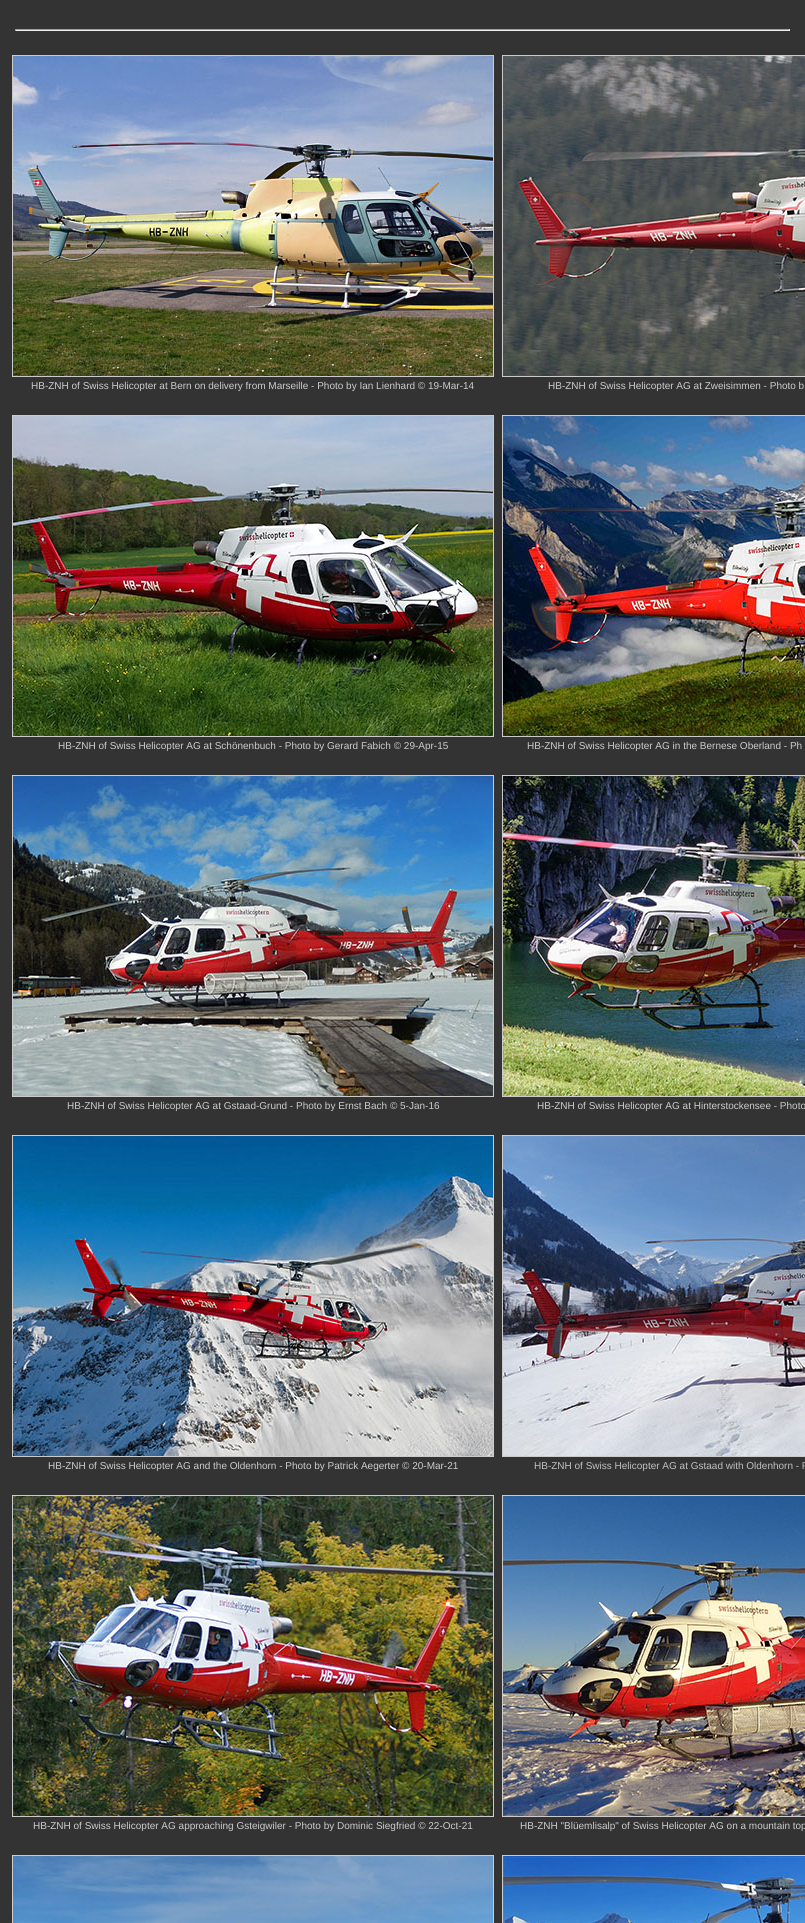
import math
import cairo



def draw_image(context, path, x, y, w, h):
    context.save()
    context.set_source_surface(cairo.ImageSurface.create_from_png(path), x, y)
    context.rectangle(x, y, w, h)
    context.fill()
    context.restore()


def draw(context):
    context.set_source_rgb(51 / 255, 51 / 255, 51 / 255)
    context.paint()
    context.set_source_rgb(159 / 255, 159 / 255, 159 / 255)
    context.rectangle(15, 29, 775, 1)
    context.fill()
    context.set_source_rgb(238 / 255, 238 / 255, 238 / 255)
    context.rectangle(789, 29, 1, 2)
    context.fill()
    context.rectangle(15, 30, 775, 1)
    context.fill()
    context.set_source_rgb(159 / 255, 159 / 255, 159 / 255)
    context.rectangle(15, 29, 1, 2)
    context.fill()
    context.rectangle(12.5, 55.5, 481, 321)
    context.set_source_rgb(204 / 255, 204 / 255, 204 / 255)
    context.set_line_width(1)
    context.stroke()
    draw_image(context, "images/1.png", 13, 56, 480, 320)
    context.rectangle(502.5, 55.5, 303, 321)
    context.stroke()
    draw_image(context, "images/2.png", 503, 56, 302, 320)
    context.rectangle(12.5, 415.5, 481, 321)
    context.stroke()
    draw_image(context, "images/3.png", 13, 416, 480, 320)
    context.rectangle(502.5, 415.5, 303, 321)
    context.stroke()
    draw_image(context, "images/4.png", 503, 416, 302, 320)
    context.rectangle(12.5, 775.5, 481, 321)
    context.stroke()
    draw_image(context, "images/5.png", 13, 776, 480, 320)
    context.rectangle(502.5, 775.5, 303, 321)
    context.stroke()
    draw_image(context, "images/6.png", 503, 776, 302, 320)
    context.rectangle(12.5, 1135.5, 481, 321)
    context.stroke()
    draw_image(context, "images/7.png", 13, 1136, 480, 320)
    context.rectangle(502.5, 1135.5, 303, 321)
    context.stroke()
    draw_image(context, "images/8.png", 503, 1136, 302, 320)
    context.rectangle(12.5, 1495.5, 481, 321)
    context.stroke()
    draw_image(context, "images/9.png", 13, 1496, 480, 320)
    context.rectangle(502.5, 1495.5, 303, 321)
    context.stroke()
    draw_image(context, "images/10.png", 503, 1496, 302, 320)
    context.rectangle(12.5, 1855.5, 481, 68)
    context.stroke()
    draw_image(context, "images/11.png", 13, 1856, 480, 67)
    context.rectangle(502.5, 1855.5, 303, 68)
    context.stroke()
    draw_image(context, "images/12.png", 503, 1856, 302, 67)
    context.select_font_face("Liberation Sans")
    context.set_font_size(10)
    context.move_to(31, 389)
    context.show_text("HB-ZNH of Swiss Helicopter at Bern on delivery from Marseille - Photo by Ian Lienhard © 19-Mar-14")
    context.move_to(548, 389)
    context.show_text("HB-ZNH of Swiss Helicopter AG at Zweisimmen - Photo b")
    context.move_to(58, 749)
    context.show_text("HB-ZNH of Swiss Helicopter AG at Schönenbuch - Photo by Gerard Fabich © 29-Apr-15")
    context.move_to(527, 749)
    context.show_text("HB-ZNH of Swiss Helicopter AG in the Bernese Oberland - Ph")
    context.move_to(67, 1109)
    context.show_text("HB-ZNH of Swiss Helicopter AG at Gstaad-Grund - Photo by Ernst Bach © 5-Jan-16")
    context.move_to(537, 1109)
    context.show_text("HB-ZNH of Swiss Helicopter AG at Hinterstockensee - Photo")
    context.move_to(48, 1469)
    context.show_text("HB-ZNH of Swiss Helicopter AG and the Oldenhorn - Photo by Patrick Aegerter © 20-Mar-21")
    context.set_source_rgb(192 / 255, 192 / 255, 192 / 255)
    context.move_to(534, 1469)
    context.show_text("HB-ZNH of Swiss Helicopter AG at Gstaad with Oldenhorn - P")
    context.set_source_rgb(204 / 255, 204 / 255, 204 / 255)
    context.move_to(33, 1829)
    context.show_text("HB-ZNH of Swiss Helicopter AG approaching Gsteigwiler - Photo by Dominic Siegfried © 22-Oct-21")
    context.move_to(520, 1829)
    context.show_text("HB-ZNH \"Blüemlisalp\" of Swiss Helicopter AG on a mountain top")


surface = cairo.ImageSurface(cairo.Format.RGB24, 805, 1923)
context = cairo.Context(surface)
options = cairo.FontOptions()
options.set_hint_metrics(cairo.HintMetrics.OFF)
options.set_hint_style(cairo.HintStyle.NONE)
context.set_font_options(options)
context.set_miter_limit(4)
draw(context)
surface.write_to_png("out.png")
